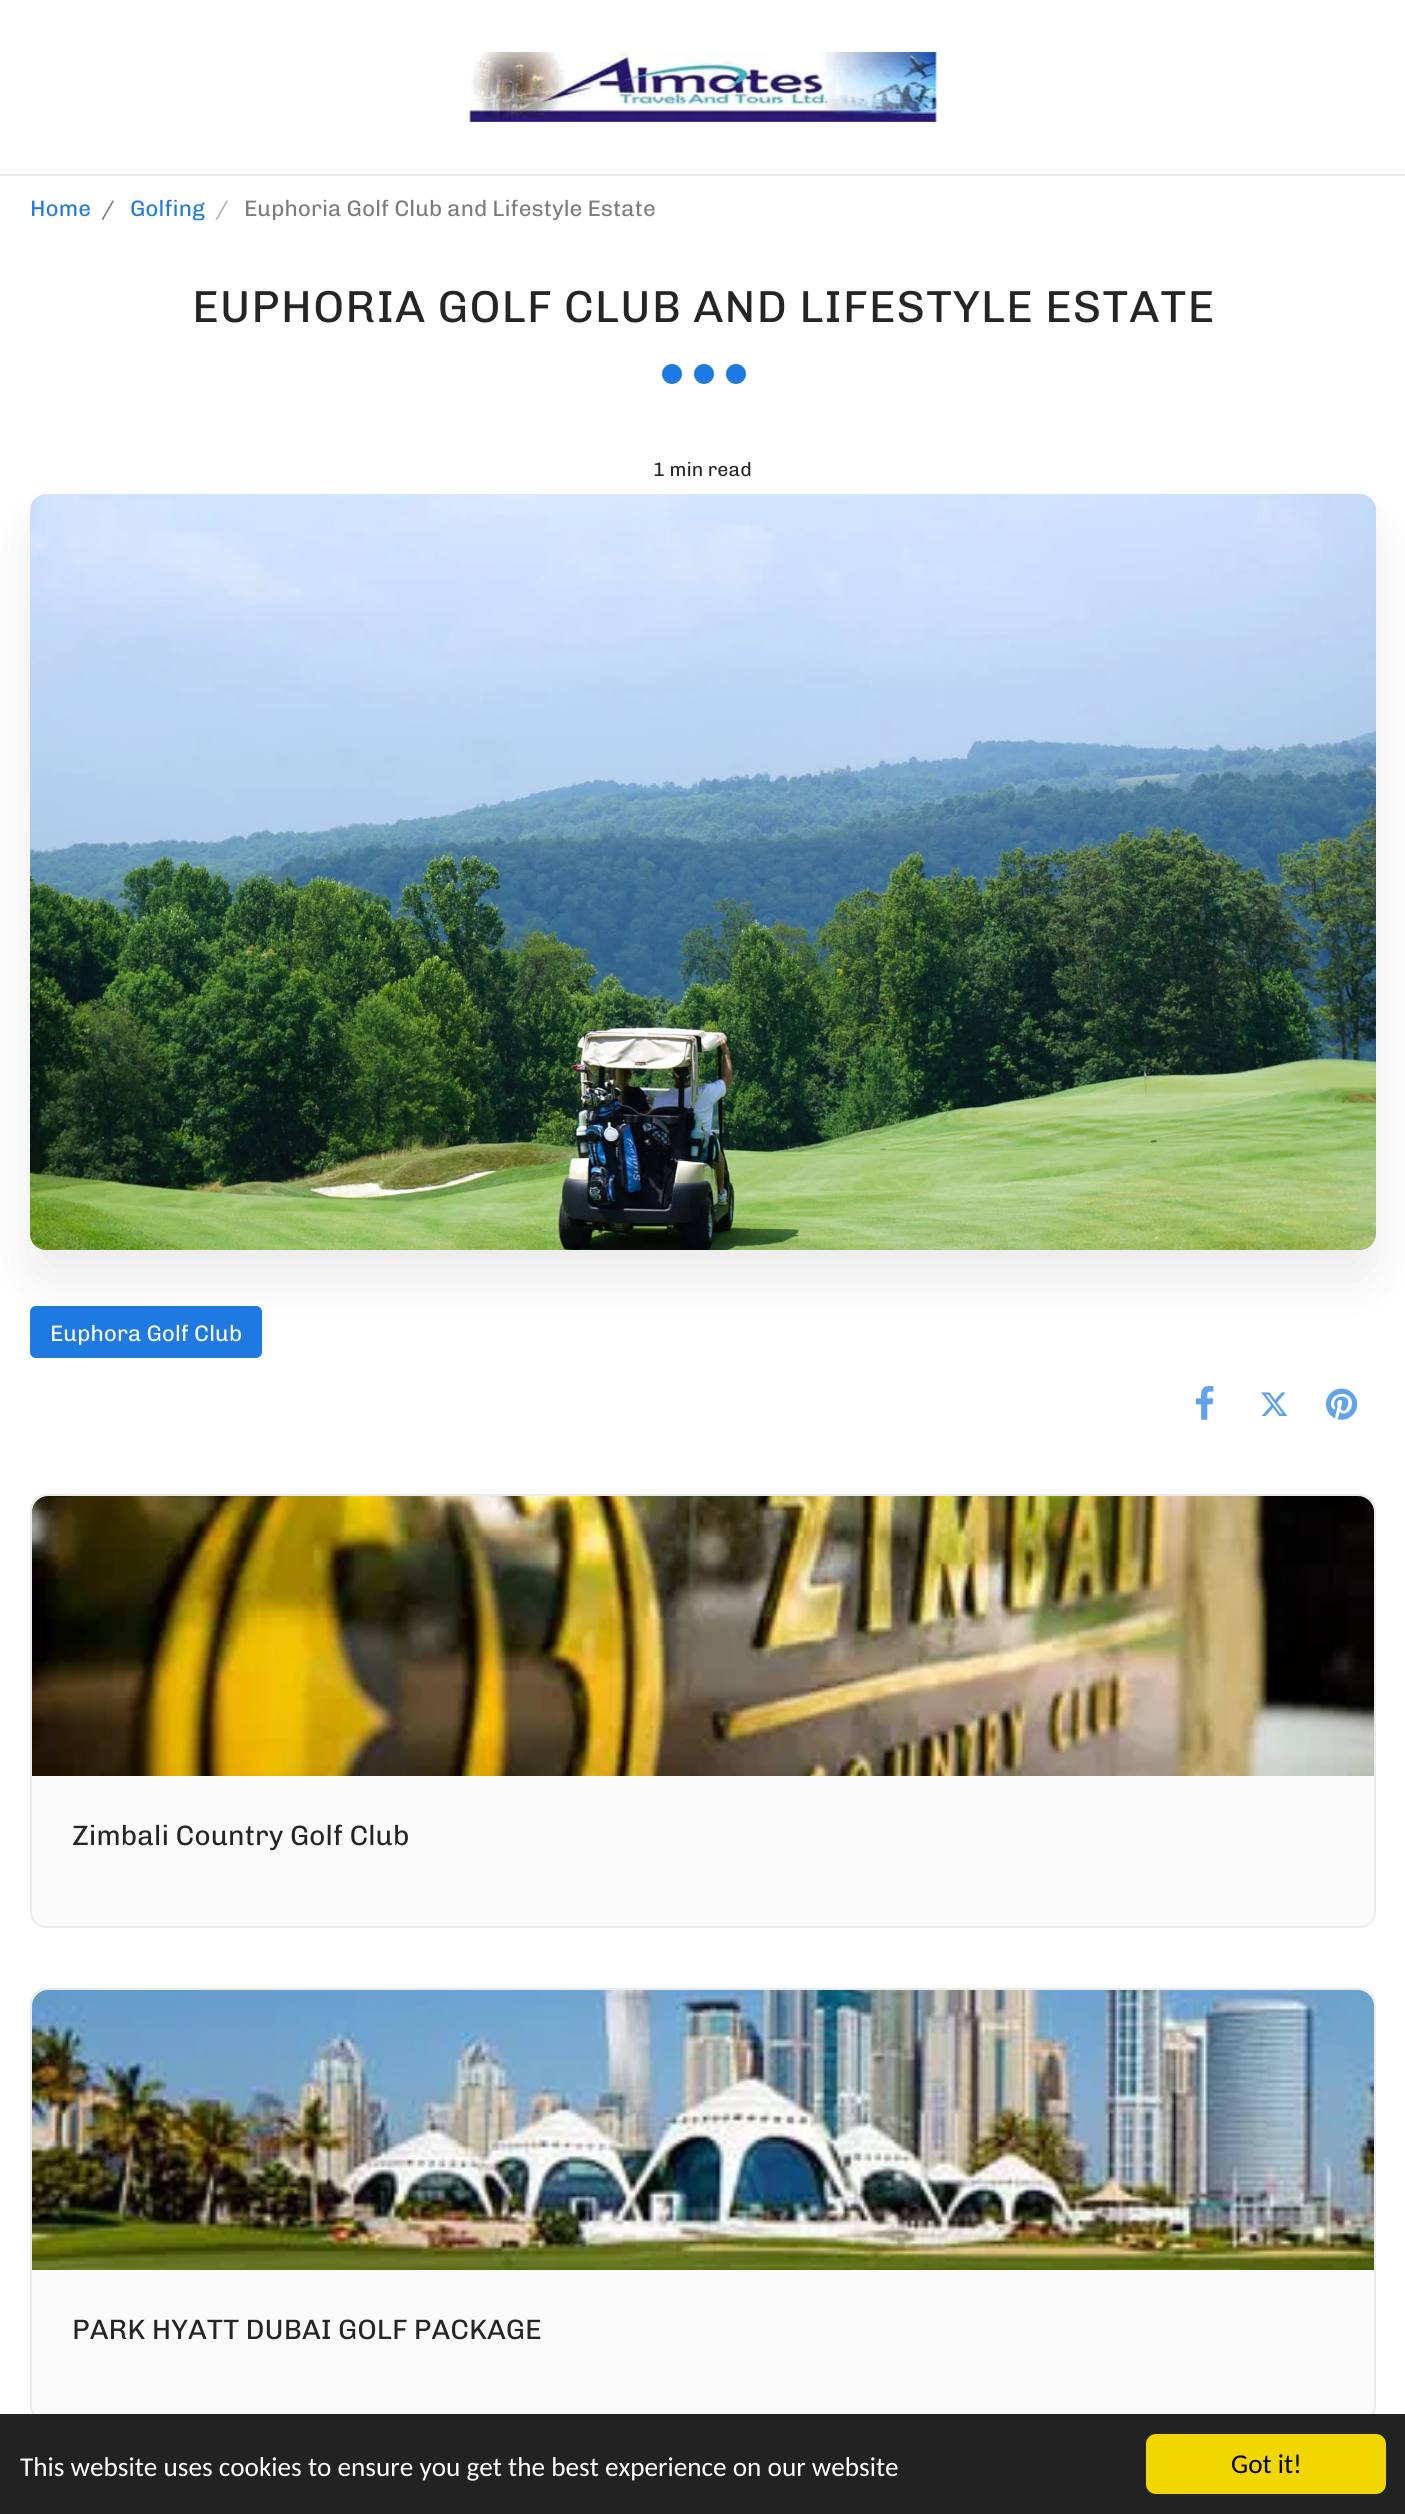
import math
import cairo



def draw_spaced(context, x, y, s, letter, word):
    context.move_to(x, y)
    for ch in s:
        context.show_text(ch)
        context.rel_move_to(letter + word * (ch == ' '), 0)


def rounded_rect(context, x, y, w, h, r):
    context.new_sub_path()
    for i, (u, v) in enumerate([(x + w - r, y + h - r), (x + r, y + h - r), (x + r, y + r), (x + w - r, y + r)]):
        context.arc(u, v, r, i * math.pi / 2, (i + 1) * math.pi / 2)
    context.close_path()


def draw_shadow(context, x, y, w, h, r, blur, alpha):
    context.push_group_with_content(cairo.Content.ALPHA)
    context.set_operator(cairo.Operator.SOURCE)
    for i in range(15, -16, -2):
        e = blur * i / 6
        if min(w, h) + 2 * e > 0:
            context.set_source_rgba(0, 0, 0, alpha * math.erfc((i - 1) / 8.5) / 2)
            rounded_rect(context, x - e, y - e, w + 2 * e, h + 2 * e, max(0, min(r + e + blur * .6, min(w, h) / 2 + e)))
            context.fill()
    context.mask(context.pop_group())


def draw_image(context, path, x, y, w, h):
    context.save()
    context.set_source_surface(cairo.ImageSurface.create_from_png(path), x, y)
    context.rectangle(x, y, w, h)
    context.fill()
    context.restore()


def draw(context):
    context.set_source_rgb(1, 1, 1)
    context.paint()
    context.set_source_rgb(235 / 255, 235 / 255, 235 / 255)
    context.rectangle(0, 174, 1405, 2)
    context.fill()
    draw_image(context, "images/1.png", 469, 52, 468, 70)
    context.set_source_rgb(30 / 255, 122 / 255, 225 / 255)
    context.arc(672, 374, 10, 0, 2 * math.pi)
    context.fill()
    context.arc(704, 374, 10, 0, 2 * math.pi)
    context.fill()
    context.arc(736, 374, 10, 0, 2 * math.pi)
    context.fill()
    context.set_source_rgb(0, 0, 0)
    draw_shadow(context, 30, 524, 1346, 756, 16, 25, 0.08)
    draw_image(context, "images/2.png", 30, 494, 1346, 756)
    context.set_source_rgb(30 / 255, 122 / 255, 225 / 255)
    rounded_rect(context, 30, 1306, 232, 52, 6)
    context.fill()
    draw_image(context, "images/3.png", 1195, 1386, 19, 34)
    draw_image(context, "images/4.png", 1261, 1392, 27, 24)
    draw_image(context, "images/5.png", 1326, 1388, 32, 32)
    context.set_source_rgb(250 / 255, 250 / 255, 250 / 255)
    rounded_rect(context, 31, 1495, 1344, 432, 15)
    context.fill_preserve()
    context.set_source_rgb(235 / 255, 235 / 255, 235 / 255)
    context.stroke()
    draw_image(context, "images/6.png", 32, 1496, 1342, 280)
    context.set_source_rgb(250 / 255, 250 / 255, 250 / 255)
    rounded_rect(context, 31, 1989, 1344, 432, 15)
    context.fill_preserve()
    context.set_source_rgb(235 / 255, 235 / 255, 235 / 255)
    context.stroke()
    draw_image(context, "images/7.png", 32, 1990, 1342, 280)
    context.set_source_rgb(34 / 255, 34 / 255, 34 / 255)
    context.rectangle(0, 2414, 1405, 100)
    context.fill()
    context.set_source_rgb(241 / 255, 214 / 255, 0)
    rounded_rect(context, 1146, 2434, 240, 60, 10)
    context.fill()
    context.select_font_face("Chivo")
    context.set_font_size(22.4)
    context.set_source_rgb(30 / 255, 122 / 255, 225 / 255)
    context.move_to(30, 216)
    context.show_text("Home")
    context.set_source_rgb(124 / 255, 124 / 255, 124 / 255)
    context.move_to(101, 216)
    context.show_text("/")
    context.set_source_rgb(30 / 255, 122 / 255, 225 / 255)
    context.move_to(130, 216)
    context.show_text("Golfing")
    context.set_source_rgb(177 / 255, 177 / 255, 177 / 255)
    context.move_to(215, 216)
    context.show_text("/")
    context.set_source_rgb(124 / 255, 124 / 255, 124 / 255)
    context.move_to(244, 216)
    context.show_text("Euphoria Golf Club and Lifestyle Estate")
    context.set_font_size(44.9)
    context.set_source_rgb(37 / 255, 37 / 255, 37 / 255)
    draw_spaced(context, 192, 322, "EUPHORIA GOLF CLUB AND LIFESTYLE ESTATE", 1, 0)
    context.set_font_size(19.5)
    context.move_to(653, 476)
    context.show_text("1 min read")
    context.set_font_size(22.4)
    context.set_source_rgb(1, 1, 1)
    context.move_to(50, 1341)
    context.show_text("Euphora Golf Club")
    context.set_font_size(28)
    context.set_source_rgb(37 / 255, 37 / 255, 37 / 255)
    context.move_to(72, 1845)
    context.show_text("Zimbali Country Golf Club")
    context.move_to(72, 2339)
    context.show_text("PARK HYATT DUBAI GOLF PACKAGE")
    context.select_font_face("Carlito")
    context.set_font_size(27.2)
    context.set_source_rgb(1, 1, 1)
    context.move_to(20, 2476)
    context.show_text("This website uses cookies to ensure you get the best experience on our website")
    context.set_source_rgb(0, 0, 0)
    context.move_to(1231, 2473)
    context.show_text("Got it!")


surface = cairo.ImageSurface(cairo.Format.RGB24, 1405, 2514)
context = cairo.Context(surface)
options = cairo.FontOptions()
options.set_hint_metrics(cairo.HintMetrics.OFF)
options.set_hint_style(cairo.HintStyle.NONE)
context.set_font_options(options)
context.set_miter_limit(4)
draw(context)
surface.write_to_png("out.png")
